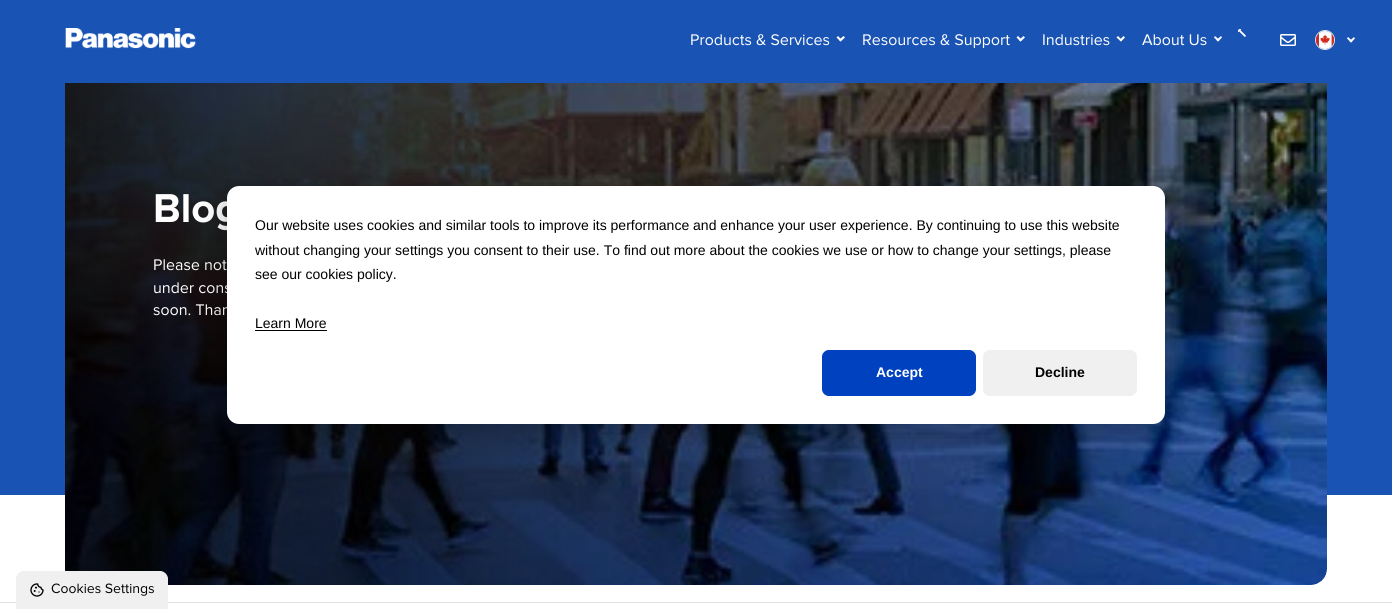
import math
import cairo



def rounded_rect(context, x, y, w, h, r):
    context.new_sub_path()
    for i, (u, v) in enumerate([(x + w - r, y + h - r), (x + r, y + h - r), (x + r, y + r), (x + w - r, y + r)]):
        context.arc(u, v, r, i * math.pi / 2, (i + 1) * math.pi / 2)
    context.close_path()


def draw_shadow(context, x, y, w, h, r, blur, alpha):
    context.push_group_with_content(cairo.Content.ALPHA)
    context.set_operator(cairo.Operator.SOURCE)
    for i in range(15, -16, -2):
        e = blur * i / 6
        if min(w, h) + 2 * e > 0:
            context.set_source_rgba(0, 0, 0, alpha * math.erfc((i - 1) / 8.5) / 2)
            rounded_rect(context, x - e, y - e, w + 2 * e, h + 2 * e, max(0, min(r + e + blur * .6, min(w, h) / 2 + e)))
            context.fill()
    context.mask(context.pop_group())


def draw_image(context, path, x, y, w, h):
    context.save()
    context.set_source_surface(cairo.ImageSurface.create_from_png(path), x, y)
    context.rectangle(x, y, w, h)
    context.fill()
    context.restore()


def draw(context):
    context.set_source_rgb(1, 1, 1)
    context.paint()
    context.set_source_rgb(25 / 255, 83 / 255, 180 / 255)
    context.rectangle(0, 83, 1392, 412)
    context.fill()
    draw_image(context, "images/1.png", 65, 83, 1262, 502)
    gradient = cairo.LinearGradient(65, 268, 1327, 267)
    gradient.add_color_stop_rgba(0, 0, 0, 0, 0.8)
    gradient.add_color_stop_rgba(1, 0, 0, 0, 0)
    context.set_source(gradient)
    rounded_rect(context, 65, -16, 1262, 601, 16)
    context.fill()
    draw_image(context, "images/2.png", 155, 194, 72, 37)
    draw_image(context, "images/3.png", 154, 259, 73, 12)
    draw_image(context, "images/4.png", 154, 282, 73, 12)
    draw_image(context, "images/5.png", 153, 304, 74, 12)
    context.set_source_rgb(25 / 255, 83 / 255, 180 / 255)
    context.rectangle(0, 0, 1392, 83)
    context.fill()
    draw_image(context, "images/6.png", 65, 28, 131, 21)
    draw_image(context, "images/7.png", 691, 34, 139, 12)
    context.set_source_rgb(1, 1, 1)
    context.new_path()
    context.move_to(843.5, 36)
    context.line_to(845, 37.5)
    context.line_to(840.5, 41.5)
    context.line_to(839, 40)
    context.close_path()
    context.fill()
    context.new_path()
    context.move_to(838, 36)
    context.line_to(842, 40)
    context.line_to(840.5, 41.5)
    context.line_to(836.5, 37.5)
    context.close_path()
    context.fill()
    draw_image(context, "images/8.png", 863, 34, 147, 14)
    context.new_path()
    context.move_to(1023.5, 36)
    context.line_to(1025, 37.5)
    context.line_to(1020.5, 41.5)
    context.line_to(1019, 40)
    context.close_path()
    context.fill()
    context.new_path()
    context.move_to(1018, 36)
    context.line_to(1022, 40)
    context.line_to(1020.5, 41.5)
    context.line_to(1016.5, 37.5)
    context.close_path()
    context.fill()
    draw_image(context, "images/9.png", 1043, 34, 67, 12)
    context.new_path()
    context.move_to(1123.5, 36)
    context.line_to(1125, 37.5)
    context.line_to(1121, 41.5)
    context.line_to(1119.5, 40)
    context.close_path()
    context.fill()
    context.new_path()
    context.move_to(1118, 36)
    context.line_to(1122, 40)
    context.line_to(1121, 41.5)
    context.line_to(1116.5, 37.5)
    context.close_path()
    context.fill()
    draw_image(context, "images/10.png", 1142, 34, 65, 12)
    context.new_path()
    context.move_to(1221, 36)
    context.line_to(1222, 37.5)
    context.line_to(1218, 41.5)
    context.line_to(1216.5, 40)
    context.close_path()
    context.fill()
    context.new_path()
    context.move_to(1215, 36)
    context.line_to(1219.5, 40)
    context.line_to(1218, 41.5)
    context.line_to(1214, 37.5)
    context.close_path()
    context.fill()
    draw_image(context, "images/11.png", 1238, 29, 8, 8)
    draw_image(context, "images/12.png", 1280, 34, 16, 12)
    context.arc(1325, 40, 9.5, 0, 2 * math.pi)
    context.set_source_rgb(228 / 255, 228 / 255, 228 / 255)
    context.set_line_width(1)
    context.stroke()
    draw_image(context, "images/13.png", 1316, 31, 18, 18)
    context.set_source_rgb(1, 1, 1)
    context.new_path()
    context.move_to(1354, 37)
    context.line_to(1355, 38.5)
    context.line_to(1351, 42.5)
    context.line_to(1349.5, 41)
    context.close_path()
    context.fill()
    context.new_path()
    context.move_to(1348, 37)
    context.line_to(1352.5, 41)
    context.line_to(1351, 42.5)
    context.line_to(1347, 38.5)
    context.close_path()
    context.fill()
    context.set_source_rgb(0, 0, 0)
    draw_shadow(context, 227, 194, 938, 238, 12, 14, 0.28)
    context.set_source_rgb(1, 1, 1)
    rounded_rect(context, 227, 186, 938, 238, 12)
    context.fill()
    context.set_source_rgb(0, 0, 0)
    context.rectangle(255, 330, 72, 1)
    context.fill()
    context.set_source_rgb(0, 65 / 255, 192 / 255)
    rounded_rect(context, 822.5, 350.5, 153, 45, 6.5)
    context.fill_preserve()
    context.stroke()
    context.set_source_rgb(240 / 255, 240 / 255, 240 / 255)
    rounded_rect(context, 983.5, 350.5, 153, 45, 6.5)
    context.fill_preserve()
    context.stroke()
    context.set_source_rgb(224 / 255, 224 / 255, 224 / 255)
    context.rectangle(0, 602, 1392, 1)
    context.fill()
    context.set_source_rgb(240 / 255, 240 / 255, 240 / 255)
    context.new_path()
    context.move_to(24, 571.5)
    context.line_to(160, 571.5)
    context.curve_to(164, 571.5, 167.5, 575, 167.5, 579)
    context.line_to(167.5, 608.5)
    context.line_to(16.5, 608.5)
    context.line_to(16.5, 579)
    context.curve_to(16.5, 575, 20, 571.5, 24, 571.5)
    context.close_path()
    context.fill_preserve()
    context.stroke()
    draw_image(context, "images/14.png", 30, 583, 14, 14)
    draw_image(context, "images/15.png", 51, 583, 103, 13)
    context.select_font_face("Liberation Sans")
    context.set_font_size(14)
    context.set_source_rgb(0, 0, 0)
    context.move_to(255, 230)
    context.show_text("Our website uses cookies and similar tools to improve its performance and enhance your user experience. By continuing to use this website")
    context.move_to(255, 255)
    context.show_text("without changing your settings you consent to their use. To find out more about the cookies we use or how to change your settings, please")
    context.move_to(255, 279)
    context.show_text("see our cookies policy.")
    context.move_to(255, 328)
    context.show_text("Learn More")
    context.select_font_face("Liberation Sans", cairo.FontSlant.NORMAL, cairo.FontWeight.BOLD)
    context.set_source_rgb(1, 1, 1)
    context.move_to(876, 377)
    context.show_text("Accept")
    context.set_source_rgb(0, 0, 0)
    context.move_to(1035, 377)
    context.show_text("Decline")


surface = cairo.ImageSurface(cairo.Format.RGB24, 1392, 609)
context = cairo.Context(surface)
options = cairo.FontOptions()
options.set_hint_metrics(cairo.HintMetrics.OFF)
options.set_hint_style(cairo.HintStyle.NONE)
context.set_font_options(options)
context.set_miter_limit(4)
draw(context)
surface.write_to_png("out.png")
